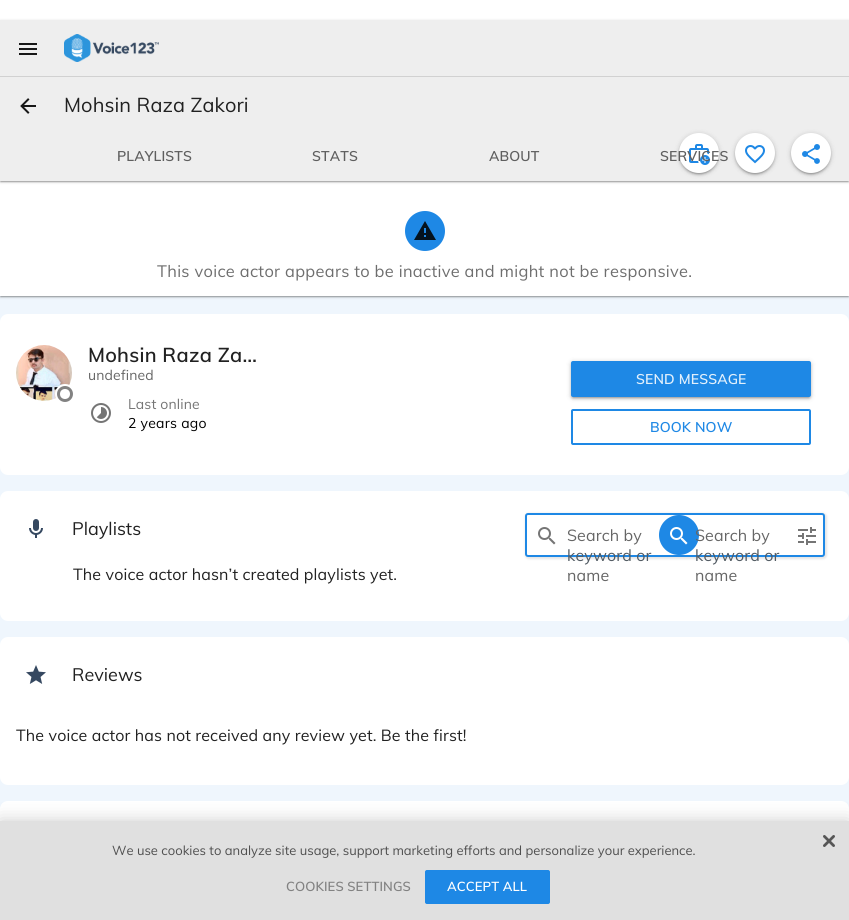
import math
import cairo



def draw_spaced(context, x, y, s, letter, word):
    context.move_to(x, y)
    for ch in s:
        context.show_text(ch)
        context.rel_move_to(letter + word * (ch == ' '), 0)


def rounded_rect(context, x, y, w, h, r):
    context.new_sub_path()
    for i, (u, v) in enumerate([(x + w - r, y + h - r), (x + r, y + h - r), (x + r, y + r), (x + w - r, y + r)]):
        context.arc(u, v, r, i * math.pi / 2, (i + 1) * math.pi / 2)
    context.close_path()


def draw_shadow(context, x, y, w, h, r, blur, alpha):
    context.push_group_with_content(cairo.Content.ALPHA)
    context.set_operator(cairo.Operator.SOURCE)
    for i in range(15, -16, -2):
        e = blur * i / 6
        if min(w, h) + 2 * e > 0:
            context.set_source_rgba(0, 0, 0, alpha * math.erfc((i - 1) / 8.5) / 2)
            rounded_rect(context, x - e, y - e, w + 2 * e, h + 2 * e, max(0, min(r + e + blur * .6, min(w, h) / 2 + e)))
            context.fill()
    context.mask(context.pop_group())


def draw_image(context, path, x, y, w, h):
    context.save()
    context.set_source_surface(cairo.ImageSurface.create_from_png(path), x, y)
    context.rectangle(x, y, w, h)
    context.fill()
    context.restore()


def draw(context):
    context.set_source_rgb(1, 1, 1)
    context.paint()
    context.set_source_rgb(239 / 255, 246 / 255, 253 / 255)
    context.rectangle(0, 296, 849, 513)
    context.fill()
    context.set_source_rgb(0, 0, 0)
    draw_shadow(context, 1, 184, 847, 113, 0, 0.5, 0.12)
    draw_shadow(context, 0, 182, 849, 115, 0, 0.5, 0.14)
    draw_shadow(context, 0, 182, 849, 115, 0, 1.5, 0.2)
    context.set_source_rgb(1, 1, 1)
    context.rectangle(0, 181, 849, 115)
    context.fill()
    context.set_source_rgb(0, 0, 0)
    draw_shadow(context, 1, 23, 847, 159, 0, 0.5, 0.12)
    draw_shadow(context, 0, 21, 849, 161, 0, 0.5, 0.14)
    draw_shadow(context, 0, 21, 849, 161, 0, 1.5, 0.2)
    context.set_source_rgb(238 / 255, 238 / 255, 238 / 255)
    context.rectangle(0, 20, 849, 161)
    context.fill()
    draw_image(context, "images/1.png", 19, 43, 18, 12)
    draw_image(context, "images/2.png", 64, 34, 95, 28)
    context.set_source_rgb(209 / 255, 209 / 255, 209 / 255)
    context.rectangle(0, 76, 849, 1)
    context.fill()
    draw_image(context, "images/3.png", 20, 98, 16, 16)
    context.set_source_rgb(0, 0, 0)
    draw_shadow(context, 681, 138, 36, 36, 18, 0.5, 0.12)
    draw_shadow(context, 679, 135, 40, 40, 20, 1, 0.14)
    draw_shadow(context, 679, 134, 40, 40, 20, 2.5, 0.2)
    context.set_source_rgb(1, 1, 1)
    context.arc(699, 153, 20, 0, 2 * math.pi)
    context.fill()
    draw_image(context, "images/4.png", 689, 144, 21, 21)
    context.set_source_rgb(0, 0, 0)
    draw_shadow(context, 737, 138, 36, 36, 18, 0.5, 0.12)
    draw_shadow(context, 735, 135, 40, 40, 20, 1, 0.14)
    draw_shadow(context, 735, 134, 40, 40, 20, 2.5, 0.2)
    context.set_source_rgb(1, 1, 1)
    context.arc(755, 153, 20, 0, 2 * math.pi)
    context.fill()
    draw_image(context, "images/5.png", 745, 145, 20, 19)
    context.set_source_rgb(0, 0, 0)
    draw_shadow(context, 793, 138, 36, 36, 18, 0.5, 0.12)
    draw_shadow(context, 791, 135, 40, 40, 20, 1, 0.14)
    draw_shadow(context, 791, 134, 40, 40, 20, 2.5, 0.2)
    context.set_source_rgb(1, 1, 1)
    context.arc(811, 153, 20, 0, 2 * math.pi)
    context.fill()
    draw_image(context, "images/6.png", 802, 144, 18, 20)
    context.set_source_rgb(30 / 255, 136 / 255, 229 / 255)
    context.arc(425, 231, 20, 0, 2 * math.pi)
    context.fill()
    draw_image(context, "images/7.png", 414, 221, 22, 19)
    context.set_source_rgb(1, 1, 1)
    rounded_rect(context, 0, 314, 849, 161, 8)
    context.fill()
    draw_image(context, "images/8.png", 16, 345, 56, 56)
    context.set_source_rgb(130 / 255, 130 / 255, 130 / 255)
    context.arc(65, 394, 9, 0, 2 * math.pi)
    context.fill_preserve()
    context.set_source_rgb(1, 1, 1)
    context.stroke()
    context.arc(65, 394, 5, 0, 2 * math.pi)
    context.fill()
    draw_image(context, "images/9.png", 91, 403, 20, 20)
    context.set_source_rgb(0, 0, 0)
    draw_shadow(context, 573, 366, 236, 32, 0, 0.5, 0.12)
    draw_shadow(context, 571, 363, 240, 36, 2, 1, 0.14)
    draw_shadow(context, 571, 362, 240, 36, 2, 2.5, 0.2)
    context.set_source_rgb(30 / 255, 136 / 255, 229 / 255)
    rounded_rect(context, 571, 361, 240, 36, 2)
    context.fill()
    rounded_rect(context, 572, 410, 238, 34, 1)
    context.stroke()
    context.set_source_rgb(1, 1, 1)
    rounded_rect(context, 0, 491, 849, 130, 8)
    context.fill()
    draw_image(context, "images/10.png", 29, 519, 14, 19)
    context.set_source_rgb(230 / 255, 230 / 255, 230 / 255)
    draw_shadow(context, 525, 513, 302, 46, 4, 1, 1)
    context.set_source_rgb(1, 1, 1)
    rounded_rect(context, 526, 514, 298, 42, 2)
    context.fill_preserve()
    context.set_source_rgb(30 / 255, 136 / 255, 229 / 255)
    context.stroke()
    draw_image(context, "images/11.png", 538, 527, 18, 18)
    context.arc(679, 535, 20, 0, 2 * math.pi)
    context.fill()
    draw_image(context, "images/12.png", 670, 527, 18, 18)
    draw_image(context, "images/13.png", 798, 527, 18, 18)
    context.set_source_rgb(1, 1, 1)
    rounded_rect(context, 0, 637, 849, 148, 8)
    context.fill()
    draw_image(context, "images/14.png", 26, 665, 20, 19)
    context.new_path()
    context.move_to(8, 801)
    context.line_to(841, 801)
    context.curve_to(845.5, 801, 849, 804.5, 849, 809)
    context.line_to(849, 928)
    context.line_to(0, 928)
    context.line_to(0, 809)
    context.curve_to(0, 804.5, 3.5, 801, 8, 801)
    context.close_path()
    context.fill()
    context.set_source_rgb(0, 0, 0)
    draw_shadow(context, 0, 821, 849, 99, 0, 9, 0.2)
    context.set_source_rgb(224 / 255, 224 / 255, 224 / 255)
    context.rectangle(0, 821, 849, 99)
    context.fill()
    draw_image(context, "images/15.png", 823, 835, 12, 12)
    context.set_source_rgb(30 / 255, 136 / 255, 229 / 255)
    rounded_rect(context, 425.5, 870.5, 124, 33, 1.5)
    context.fill_preserve()
    context.set_line_width(1)
    context.stroke()
    context.select_font_face("Muli")
    context.set_font_size(20)
    context.set_source_rgb(33 / 255, 33 / 255, 33 / 255)
    draw_spaced(context, 64, 112, "Mohsin Raza Zakori", 0.1, 0)
    context.select_font_face("Muli SemiBold")
    context.set_font_size(14)
    context.set_source_rgb(95 / 255, 95 / 255, 95 / 255)
    draw_spaced(context, 117, 161, "PLAYLISTS", 0.15, 0)
    draw_spaced(context, 312, 161, "STATS", 0.15, 0)
    draw_spaced(context, 489, 161, "ABOUT", 0.15, 0)
    draw_spaced(context, 660, 161, "SERVICES", 0.15, 0)
    context.select_font_face("Muli")
    context.set_font_size(16.4)
    context.set_source_rgb(110 / 255, 110 / 255, 110 / 255)
    draw_spaced(context, 157, 277, "This voice actor appears to be inactive and might not be responsive.", 0.33, 0)
    context.select_font_face("Muli SemiBold")
    context.set_font_size(20)
    context.set_source_rgb(33 / 255, 33 / 255, 33 / 255)
    draw_spaced(context, 88, 362, "Mohsin Raza Za…", 0.25, 0)
    context.select_font_face("Muli")
    context.set_font_size(14)
    context.set_source_rgb(102 / 255, 102 / 255, 102 / 255)
    draw_spaced(context, 88, 380, "undefined", 0.15, 0)
    context.set_source_rgb(117 / 255, 117 / 255, 117 / 255)
    draw_spaced(context, 128, 409, "Last online", 0.15, 0)
    context.set_source_rgb(0, 0, 0)
    draw_spaced(context, 128, 428, "2 years ago", 0.25, 0)
    context.select_font_face("Muli SemiBold")
    context.set_source_rgb(226 / 255, 240 / 255, 252 / 255)
    draw_spaced(context, 636, 384, "SEND MESSAGE", 0.15, 0)
    context.set_source_rgb(30 / 255, 136 / 255, 229 / 255)
    draw_spaced(context, 650, 432, "BOOK NOW", 0.15, 0)
    context.select_font_face("Muli")
    context.set_font_size(18)
    context.set_source_rgb(33 / 255, 33 / 255, 33 / 255)
    context.move_to(72, 535)
    context.show_text("Playlists")
    context.set_font_size(16)
    context.set_source_rgb(102 / 255, 102 / 255, 102 / 255)
    draw_spaced(context, 567, 541, "Search by", 0.15, 0)
    context.set_source_rgb(81 / 255, 90 / 255, 98 / 255)
    draw_spaced(context, 567, 561, "keyword or", 0.15, 0)
    context.set_source_rgb(102 / 255, 102 / 255, 102 / 255)
    draw_spaced(context, 567, 581, "name", 0.15, 0)
    draw_spaced(context, 695, 541, "Search by", 0.15, 0)
    context.set_source_rgb(81 / 255, 90 / 255, 98 / 255)
    draw_spaced(context, 695, 561, "keyword or", 0.15, 0)
    context.set_source_rgb(102 / 255, 102 / 255, 102 / 255)
    draw_spaced(context, 695, 581, "name", 0.15, 0)
    context.set_source_rgb(33 / 255, 33 / 255, 33 / 255)
    draw_spaced(context, 73, 580, "The voice actor hasn’t created playlists yet.", 0.15, 0)
    context.set_font_size(18)
    context.move_to(72, 681)
    context.show_text("Reviews")
    context.set_font_size(16)
    draw_spaced(context, 16, 741, "The voice actor has not received any review yet. Be the first!", 0.15, 0)
    context.set_font_size(13)
    context.set_source_rgb(79 / 255, 79 / 255, 79 / 255)
    context.move_to(112, 855)
    context.show_text("We use cookies to analyze site usage, support marketing efforts and personalize your experience.")
    context.select_font_face("Muli SemiBold")
    context.set_source_rgb(130 / 255, 130 / 255, 130 / 255)
    draw_spaced(context, 286, 891, "COOKIES SETTINGS", 0.1, 0)
    context.set_source_rgb(1, 1, 1)
    draw_spaced(context, 447, 891, "ACCEPT ALL", 0.1, 0)


surface = cairo.ImageSurface(cairo.Format.RGB24, 849, 920)
context = cairo.Context(surface)
options = cairo.FontOptions()
options.set_hint_metrics(cairo.HintMetrics.OFF)
options.set_hint_style(cairo.HintStyle.NONE)
context.set_font_options(options)
context.set_miter_limit(4)
draw(context)
surface.write_to_png("out.png")
